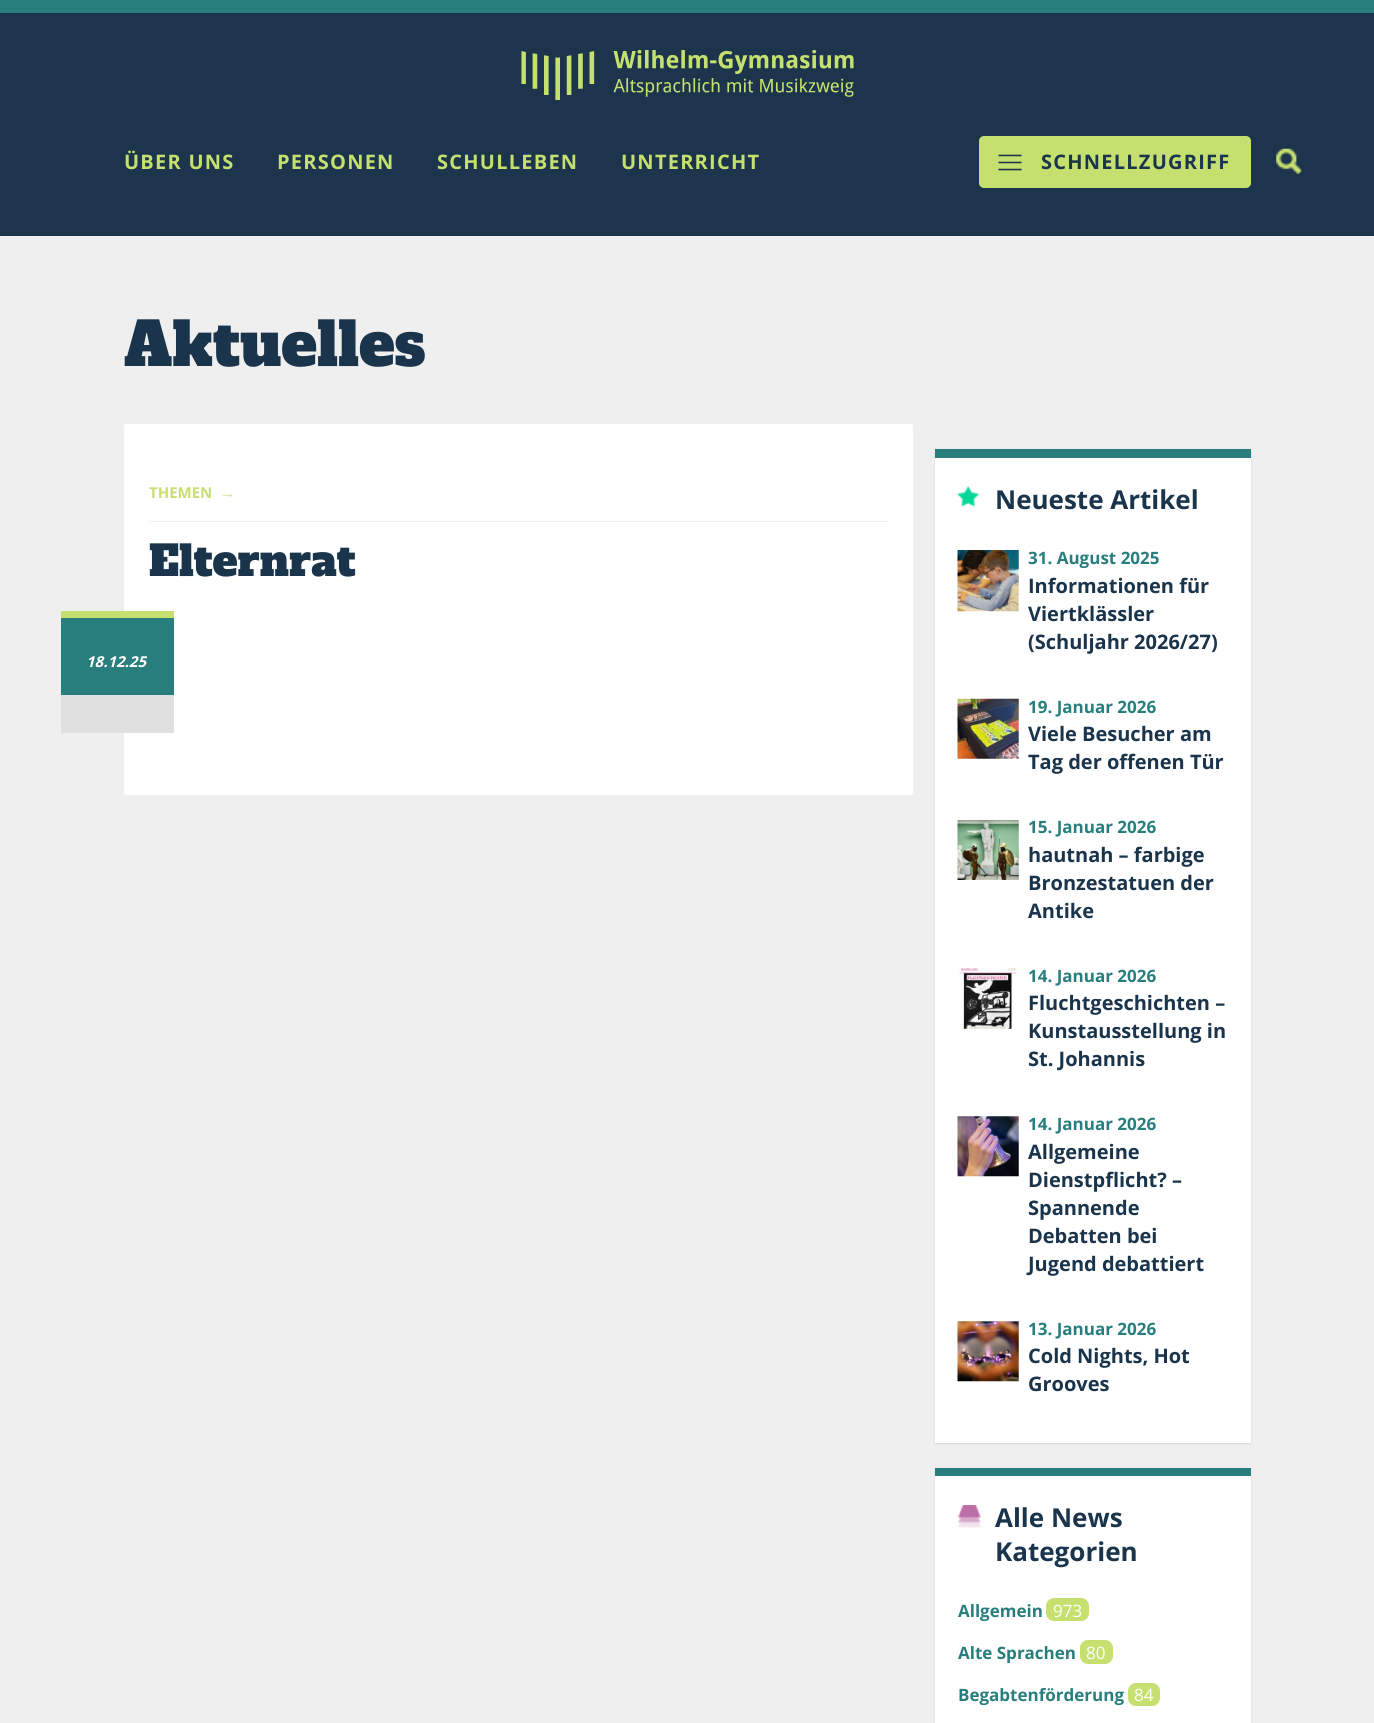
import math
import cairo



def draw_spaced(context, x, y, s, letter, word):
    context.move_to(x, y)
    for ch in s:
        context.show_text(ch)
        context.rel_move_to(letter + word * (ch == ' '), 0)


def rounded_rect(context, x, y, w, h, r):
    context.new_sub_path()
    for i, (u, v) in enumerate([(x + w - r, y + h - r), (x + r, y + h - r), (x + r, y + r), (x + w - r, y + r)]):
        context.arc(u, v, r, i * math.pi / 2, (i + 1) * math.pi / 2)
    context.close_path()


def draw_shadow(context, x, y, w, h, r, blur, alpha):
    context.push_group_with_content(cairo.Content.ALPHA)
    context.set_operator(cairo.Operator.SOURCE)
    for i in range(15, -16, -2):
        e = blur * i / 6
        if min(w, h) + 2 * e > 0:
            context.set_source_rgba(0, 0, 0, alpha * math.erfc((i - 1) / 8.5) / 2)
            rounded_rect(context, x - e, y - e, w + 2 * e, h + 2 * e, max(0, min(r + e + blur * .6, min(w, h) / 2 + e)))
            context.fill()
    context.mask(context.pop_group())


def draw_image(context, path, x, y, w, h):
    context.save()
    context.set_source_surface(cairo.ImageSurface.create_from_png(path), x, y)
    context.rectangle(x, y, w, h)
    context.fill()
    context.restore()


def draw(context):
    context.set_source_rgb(40 / 255, 125 / 255, 125 / 255)
    context.paint()
    context.set_source_rgb(28 / 255, 52 / 255, 76 / 255)
    context.rectangle(0, 13, 1374, 223)
    context.fill()
    draw_image(context, "images/1.png", 521, 50, 333, 50)
    context.set_source_rgb(198 / 255, 224 / 255, 112 / 255)
    rounded_rect(context, 979, 136, 272, 52, 5)
    context.fill()
    draw_image(context, "images/2.png", 998, 154, 24, 17)
    draw_image(context, "images/3.png", 1276, 148, 26, 26)
    context.set_source_rgb(239 / 255, 239 / 255, 239 / 255)
    context.rectangle(0, 236, 1374, 1487)
    context.fill()
    context.set_source_rgb(1, 1, 1)
    rounded_rect(context, 124, 424, 789, 371, 2.5)
    context.fill()
    context.set_source_rgb(239 / 255, 239 / 255, 239 / 255)
    context.rectangle(149, 521, 739, 1)
    context.fill()
    context.set_source_rgb(224 / 255, 224 / 255, 224 / 255)
    context.rectangle(61, 695, 113, 38)
    context.fill()
    context.set_source_rgb(198 / 255, 224 / 255, 112 / 255)
    context.rectangle(61, 611, 113, 7)
    context.fill()
    context.set_source_rgb(40 / 255, 125 / 255, 125 / 255)
    context.rectangle(61, 618, 113, 77)
    context.fill()
    context.set_source_rgb(0, 0, 0)
    draw_shadow(context, 935, 450, 316, 994, 0, 1, 0.1)
    context.set_source_rgb(1, 1, 1)
    context.rectangle(935, 458, 316, 985)
    context.fill()
    context.set_source_rgb(40 / 255, 125 / 255, 125 / 255)
    context.rectangle(935, 449, 316, 9)
    context.fill()
    draw_image(context, "images/4.png", 957, 486, 22, 21)
    draw_image(context, "images/5.png", 957, 550, 62, 62)
    draw_image(context, "images/6.png", 957, 698, 62, 61)
    draw_image(context, "images/7.png", 957, 820, 62, 60)
    draw_image(context, "images/8.png", 958, 967, 59, 62)
    draw_image(context, "images/9.png", 957, 1116, 62, 61)
    draw_image(context, "images/10.png", 957, 1321, 62, 61)
    context.set_source_rgb(0, 0, 0)
    draw_shadow(context, 935, 1469, 316, 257, 0, 1, 0.1)
    context.set_source_rgb(1, 1, 1)
    context.rectangle(935, 1476, 316, 247)
    context.fill()
    context.set_source_rgb(40 / 255, 125 / 255, 125 / 255)
    context.rectangle(935, 1468, 316, 8)
    context.fill()
    draw_image(context, "images/11.png", 957, 1505, 25, 23)
    context.set_source_rgb(198 / 255, 224 / 255, 112 / 255)
    rounded_rect(context, 1046, 1598, 43, 23, 8)
    context.fill()
    rounded_rect(context, 1080, 1640, 33, 24, 8)
    context.fill()
    rounded_rect(context, 1128, 1683, 32, 23, 8)
    context.fill()
    context.select_font_face("Open Sans", cairo.FontSlant.NORMAL, cairo.FontWeight.BOLD)
    context.set_font_size(20)
    draw_spaced(context, 124, 169, "ÜBER UNS", 1.25, 0)
    draw_spaced(context, 277, 169, "PERSONEN", 1.25, 0)
    draw_spaced(context, 437, 169, "SCHULLEBEN", 1.25, 0)
    draw_spaced(context, 621, 169, "UNTERRICHT", 1.25, 0)
    context.set_source_rgb(26 / 255, 52 / 255, 76 / 255)
    draw_spaced(context, 1041, 169, "SCHNELLZUGRIFF", 1.25, 0)
    context.select_font_face("Alfa Slab One")
    context.set_font_size(60)
    context.move_to(124, 366)
    context.show_text("Aktuelles")
    context.select_font_face("Open Sans", cairo.FontSlant.NORMAL, cairo.FontWeight.BOLD)
    context.set_font_size(15)
    context.set_source_rgb(198 / 255, 224 / 255, 112 / 255)
    context.move_to(149, 498)
    context.show_text("THEMEN")
    context.select_font_face("Liberation Sans", cairo.FontSlant.NORMAL, cairo.FontWeight.BOLD)
    context.move_to(220, 498)
    context.show_text("→")
    context.select_font_face("Alfa Slab One")
    context.set_font_size(42)
    context.set_source_rgb(26 / 255, 52 / 255, 76 / 255)
    context.move_to(149, 576)
    context.show_text("Elternrat")
    context.select_font_face("Open Sans", cairo.FontSlant.ITALIC, cairo.FontWeight.BOLD)
    context.set_font_size(15)
    context.set_source_rgb(1, 1, 1)
    context.move_to(86, 667)
    context.show_text("18.12.25")
    context.select_font_face("Open Sans", cairo.FontSlant.NORMAL, cairo.FontWeight.BOLD)
    context.set_font_size(26)
    context.set_source_rgb(26 / 255, 52 / 255, 76 / 255)
    context.move_to(995, 509)
    context.show_text("Neueste Artikel")
    context.set_font_size(17)
    context.set_source_rgb(40 / 255, 125 / 255, 125 / 255)
    context.move_to(1028, 564)
    context.show_text("31. August 2025")
    context.set_font_size(20)
    context.set_source_rgb(26 / 255, 52 / 255, 76 / 255)
    context.move_to(1028, 593)
    context.show_text("Informationen für")
    context.move_to(1028, 621)
    context.show_text("Viertklässler")
    context.move_to(1028, 649)
    context.show_text("(Schuljahr 2026/27)")
    context.set_font_size(17)
    context.set_source_rgb(40 / 255, 125 / 255, 125 / 255)
    context.move_to(1028, 713)
    context.show_text("19. Januar 2026")
    context.set_font_size(20)
    context.set_source_rgb(26 / 255, 52 / 255, 76 / 255)
    context.move_to(1028, 741)
    context.show_text("Viele Besucher am")
    context.move_to(1028, 769)
    context.show_text("Tag der offenen Tür")
    context.set_font_size(17)
    context.set_source_rgb(40 / 255, 125 / 255, 125 / 255)
    context.move_to(1028, 833)
    context.show_text("15. Januar 2026")
    context.set_font_size(20)
    context.set_source_rgb(26 / 255, 52 / 255, 76 / 255)
    context.move_to(1028, 862)
    context.show_text("hautnah – farbige")
    context.move_to(1028, 890)
    context.show_text("Bronzestatuen der")
    context.move_to(1028, 918)
    context.show_text("Antike")
    context.set_font_size(17)
    context.set_source_rgb(40 / 255, 125 / 255, 125 / 255)
    context.move_to(1028, 982)
    context.show_text("14. Januar 2026")
    context.set_font_size(20)
    context.set_source_rgb(26 / 255, 52 / 255, 76 / 255)
    context.move_to(1028, 1010)
    context.show_text("Fluchtgeschichten –")
    context.move_to(1028, 1038)
    context.show_text("Kunstausstellung in")
    context.move_to(1028, 1066)
    context.show_text("St. Johannis")
    context.set_font_size(17)
    context.set_source_rgb(40 / 255, 125 / 255, 125 / 255)
    context.move_to(1028, 1130)
    context.show_text("14. Januar 2026")
    context.set_font_size(20)
    context.set_source_rgb(26 / 255, 52 / 255, 76 / 255)
    context.move_to(1028, 1159)
    context.show_text("Allgemeine")
    context.move_to(1028, 1187)
    context.show_text("Dienstpflicht? –")
    context.move_to(1028, 1215)
    context.show_text("Spannende")
    context.move_to(1028, 1243)
    context.show_text("Debatten bei")
    context.move_to(1028, 1271)
    context.show_text("Jugend debattiert")
    context.set_font_size(17)
    context.set_source_rgb(40 / 255, 125 / 255, 125 / 255)
    context.move_to(1028, 1335)
    context.show_text("13. Januar 2026")
    context.set_font_size(20)
    context.set_source_rgb(26 / 255, 52 / 255, 76 / 255)
    context.move_to(1028, 1363)
    context.show_text("Cold Nights, Hot")
    context.move_to(1028, 1391)
    context.show_text("Grooves")
    context.set_font_size(26)
    context.move_to(995, 1527)
    context.show_text("Alle News")
    context.move_to(995, 1561)
    context.show_text("Kategorien")
    context.set_font_size(17)
    context.set_source_rgb(40 / 255, 125 / 255, 125 / 255)
    context.move_to(958, 1617)
    context.show_text("Allgemein")
    context.select_font_face("Open Sans")
    context.set_source_rgb(1, 1, 1)
    context.move_to(1053, 1617)
    context.show_text("973")
    context.select_font_face("Open Sans", cairo.FontSlant.NORMAL, cairo.FontWeight.BOLD)
    context.set_source_rgb(40 / 255, 125 / 255, 125 / 255)
    context.move_to(958, 1659)
    context.show_text("Alte Sprachen")
    context.select_font_face("Open Sans")
    context.set_source_rgb(1, 1, 1)
    context.move_to(1086, 1659)
    context.show_text("80")
    context.select_font_face("Open Sans", cairo.FontSlant.NORMAL, cairo.FontWeight.BOLD)
    context.set_source_rgb(40 / 255, 125 / 255, 125 / 255)
    context.move_to(958, 1701)
    context.show_text("Begabtenförderung")
    context.select_font_face("Open Sans")
    context.set_source_rgb(1, 1, 1)
    context.move_to(1134, 1701)
    context.show_text("84")


surface = cairo.ImageSurface(cairo.Format.RGB24, 1374, 1723)
context = cairo.Context(surface)
options = cairo.FontOptions()
options.set_hint_metrics(cairo.HintMetrics.OFF)
options.set_hint_style(cairo.HintStyle.NONE)
context.set_font_options(options)
context.set_miter_limit(4)
draw(context)
surface.write_to_png("out.png")
